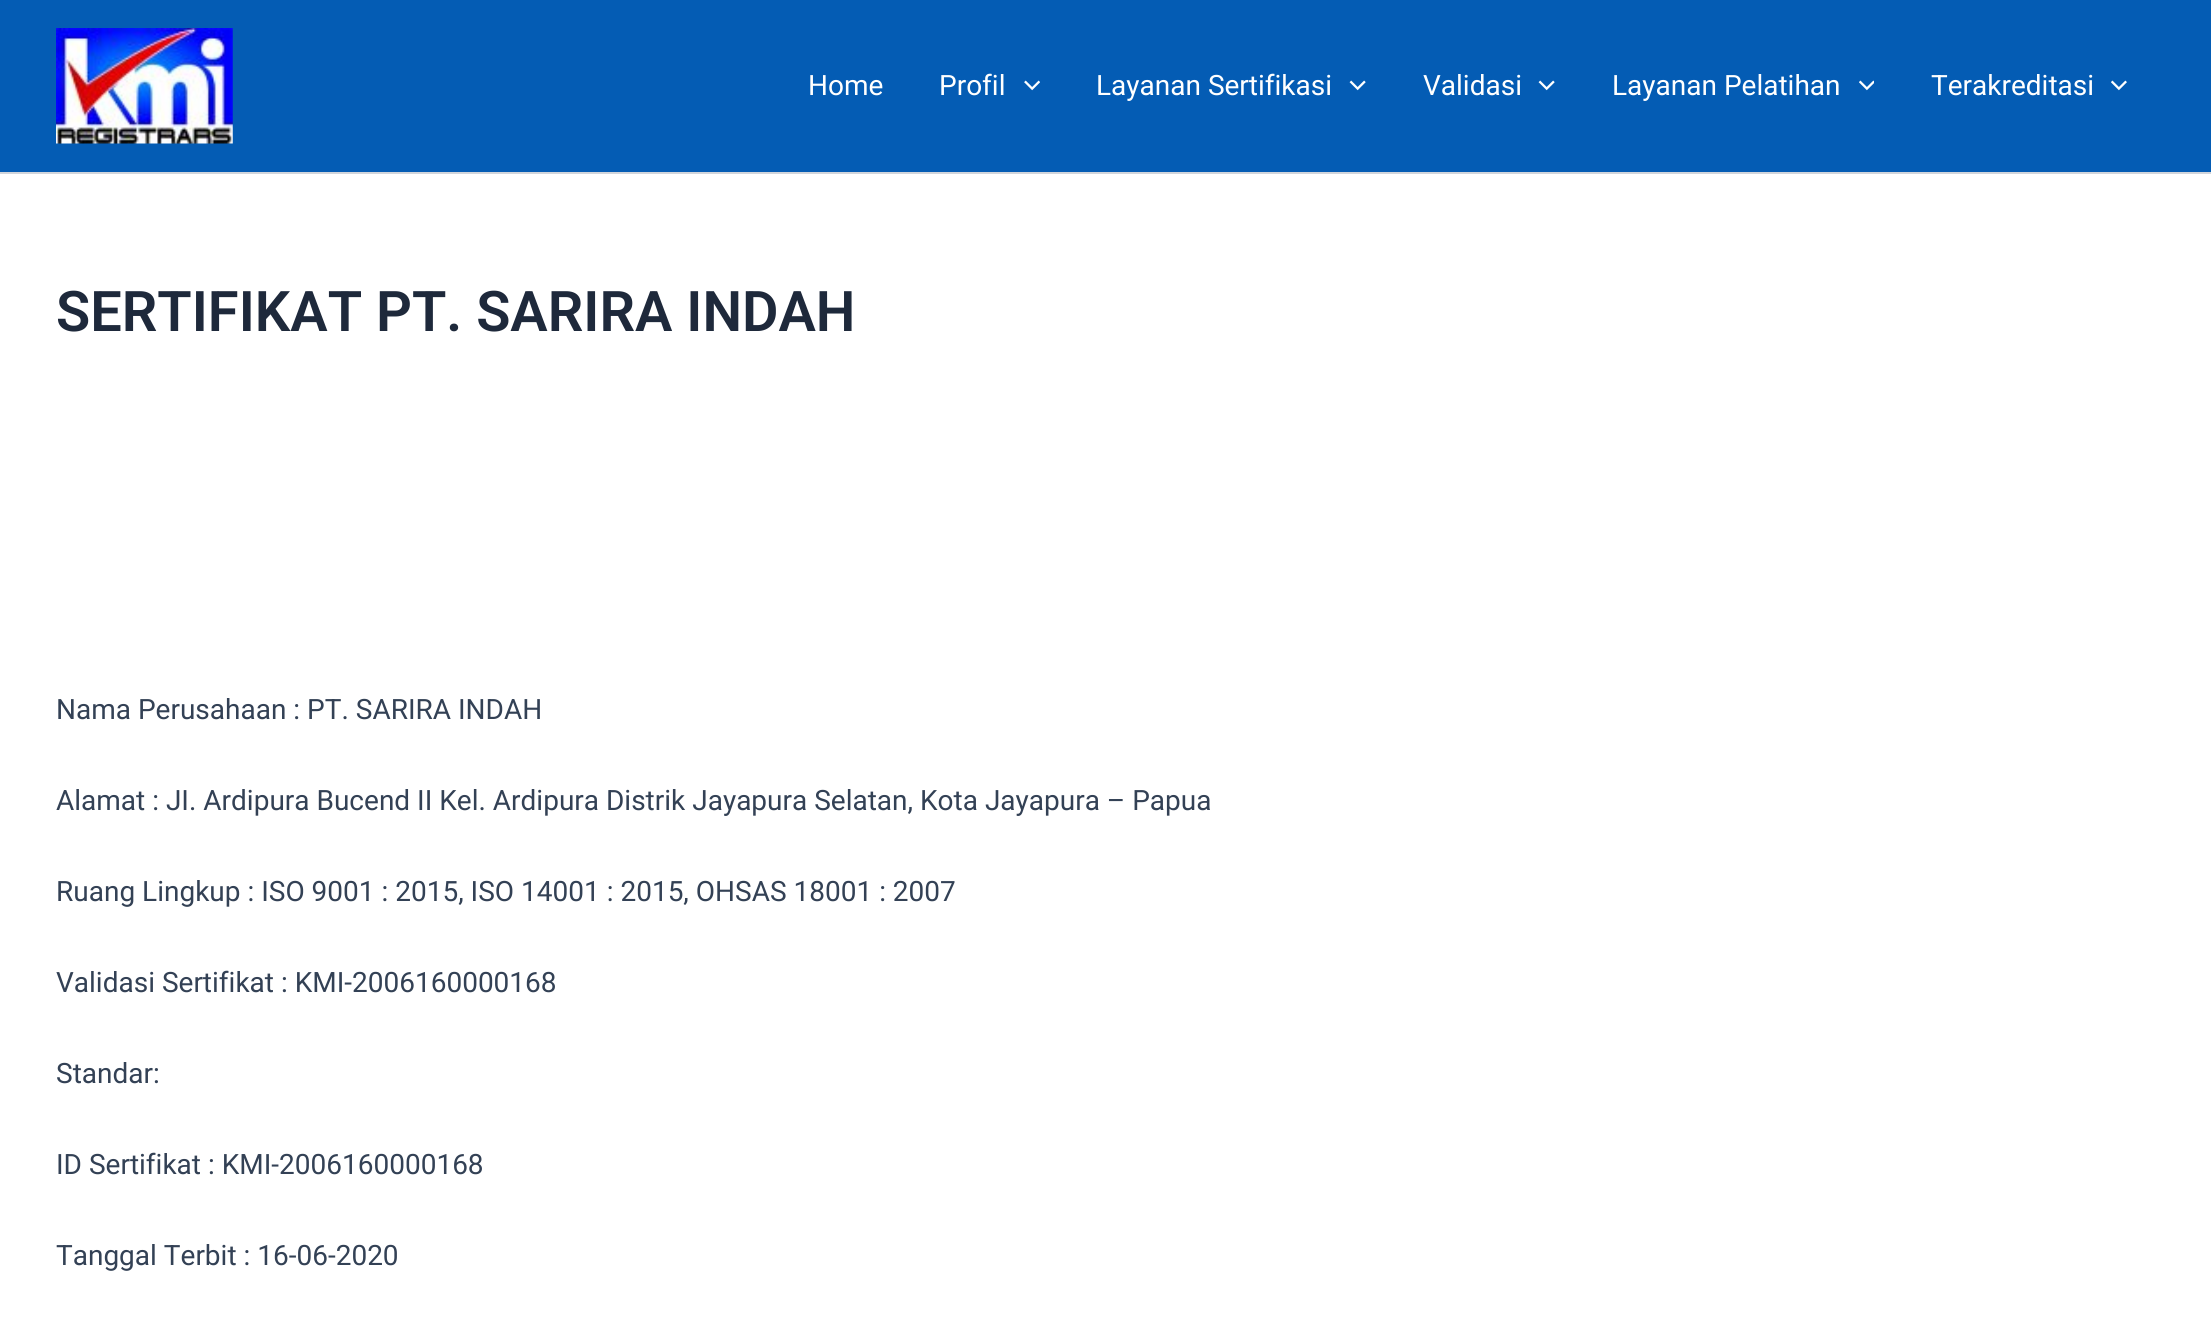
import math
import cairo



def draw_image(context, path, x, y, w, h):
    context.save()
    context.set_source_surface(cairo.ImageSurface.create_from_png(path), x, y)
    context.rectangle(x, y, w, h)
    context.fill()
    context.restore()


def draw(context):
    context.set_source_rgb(1, 1, 1)
    context.paint()
    context.set_source_rgb(4 / 255, 92 / 255, 180 / 255)
    context.rectangle(0, 0, 2211, 172)
    context.fill()
    context.set_source_rgb(209 / 255, 213 / 255, 219 / 255)
    context.rectangle(0, 172, 2211, 2)
    context.fill()
    draw_image(context, "images/1.png", 56, 28, 177, 116)
    draw_image(context, "images/2.png", 1024, 80, 16, 11)
    draw_image(context, "images/3.png", 1349, 80, 17, 11)
    draw_image(context, "images/3.png", 1538, 80, 17, 11)
    draw_image(context, "images/4.png", 1859, 80, 15, 11)
    draw_image(context, "images/5.png", 2111, 80, 16, 11)
    context.select_font_face("Roboto")
    context.set_font_size(28)
    context.set_source_rgb(1, 1, 1)
    context.move_to(808, 95)
    context.show_text("Home")
    context.move_to(939, 95)
    context.show_text("Profil")
    context.move_to(1096, 95)
    context.show_text("Layanan Sertifikasi")
    context.move_to(1423, 95)
    context.show_text("Validasi")
    context.move_to(1612, 95)
    context.show_text("Layanan Pelatihan")
    context.move_to(1931, 95)
    context.show_text("Terakreditasi")
    context.select_font_face("Roboto SemiBold")
    context.set_font_size(56)
    context.set_source_rgb(30 / 255, 41 / 255, 59 / 255)
    context.move_to(56, 331)
    context.show_text("SERTIFIKAT PT. SARIRA INDAH")
    context.select_font_face("Roboto")
    context.set_font_size(28)
    context.set_source_rgb(51 / 255, 65 / 255, 85 / 255)
    context.move_to(56, 719)
    context.show_text("Nama Perusahaan : PT. SARIRA INDAH")
    context.move_to(56, 810)
    context.show_text("Alamat : JI. Ardipura Bucend II Kel. Ardipura Distrik Jayapura Selatan, Kota Jayapura – Papua")
    context.move_to(56, 901)
    context.show_text("Ruang Lingkup : ISO 9001 : 2015, ISO 14001 : 2015, OHSAS 18001 : 2007")
    context.move_to(56, 992)
    context.show_text("Validasi Sertifikat : KMI-2006160000168")
    context.move_to(56, 1083)
    context.show_text("Standar:")
    context.move_to(56, 1174)
    context.show_text("ID Sertifikat : KMI-2006160000168")
    context.move_to(56, 1265)
    context.show_text("Tanggal Terbit : 16-06-2020")


surface = cairo.ImageSurface(cairo.Format.RGB24, 2211, 1344)
context = cairo.Context(surface)
options = cairo.FontOptions()
options.set_hint_metrics(cairo.HintMetrics.OFF)
options.set_hint_style(cairo.HintStyle.NONE)
context.set_font_options(options)
context.set_miter_limit(4)
draw(context)
surface.write_to_png("out.png")
